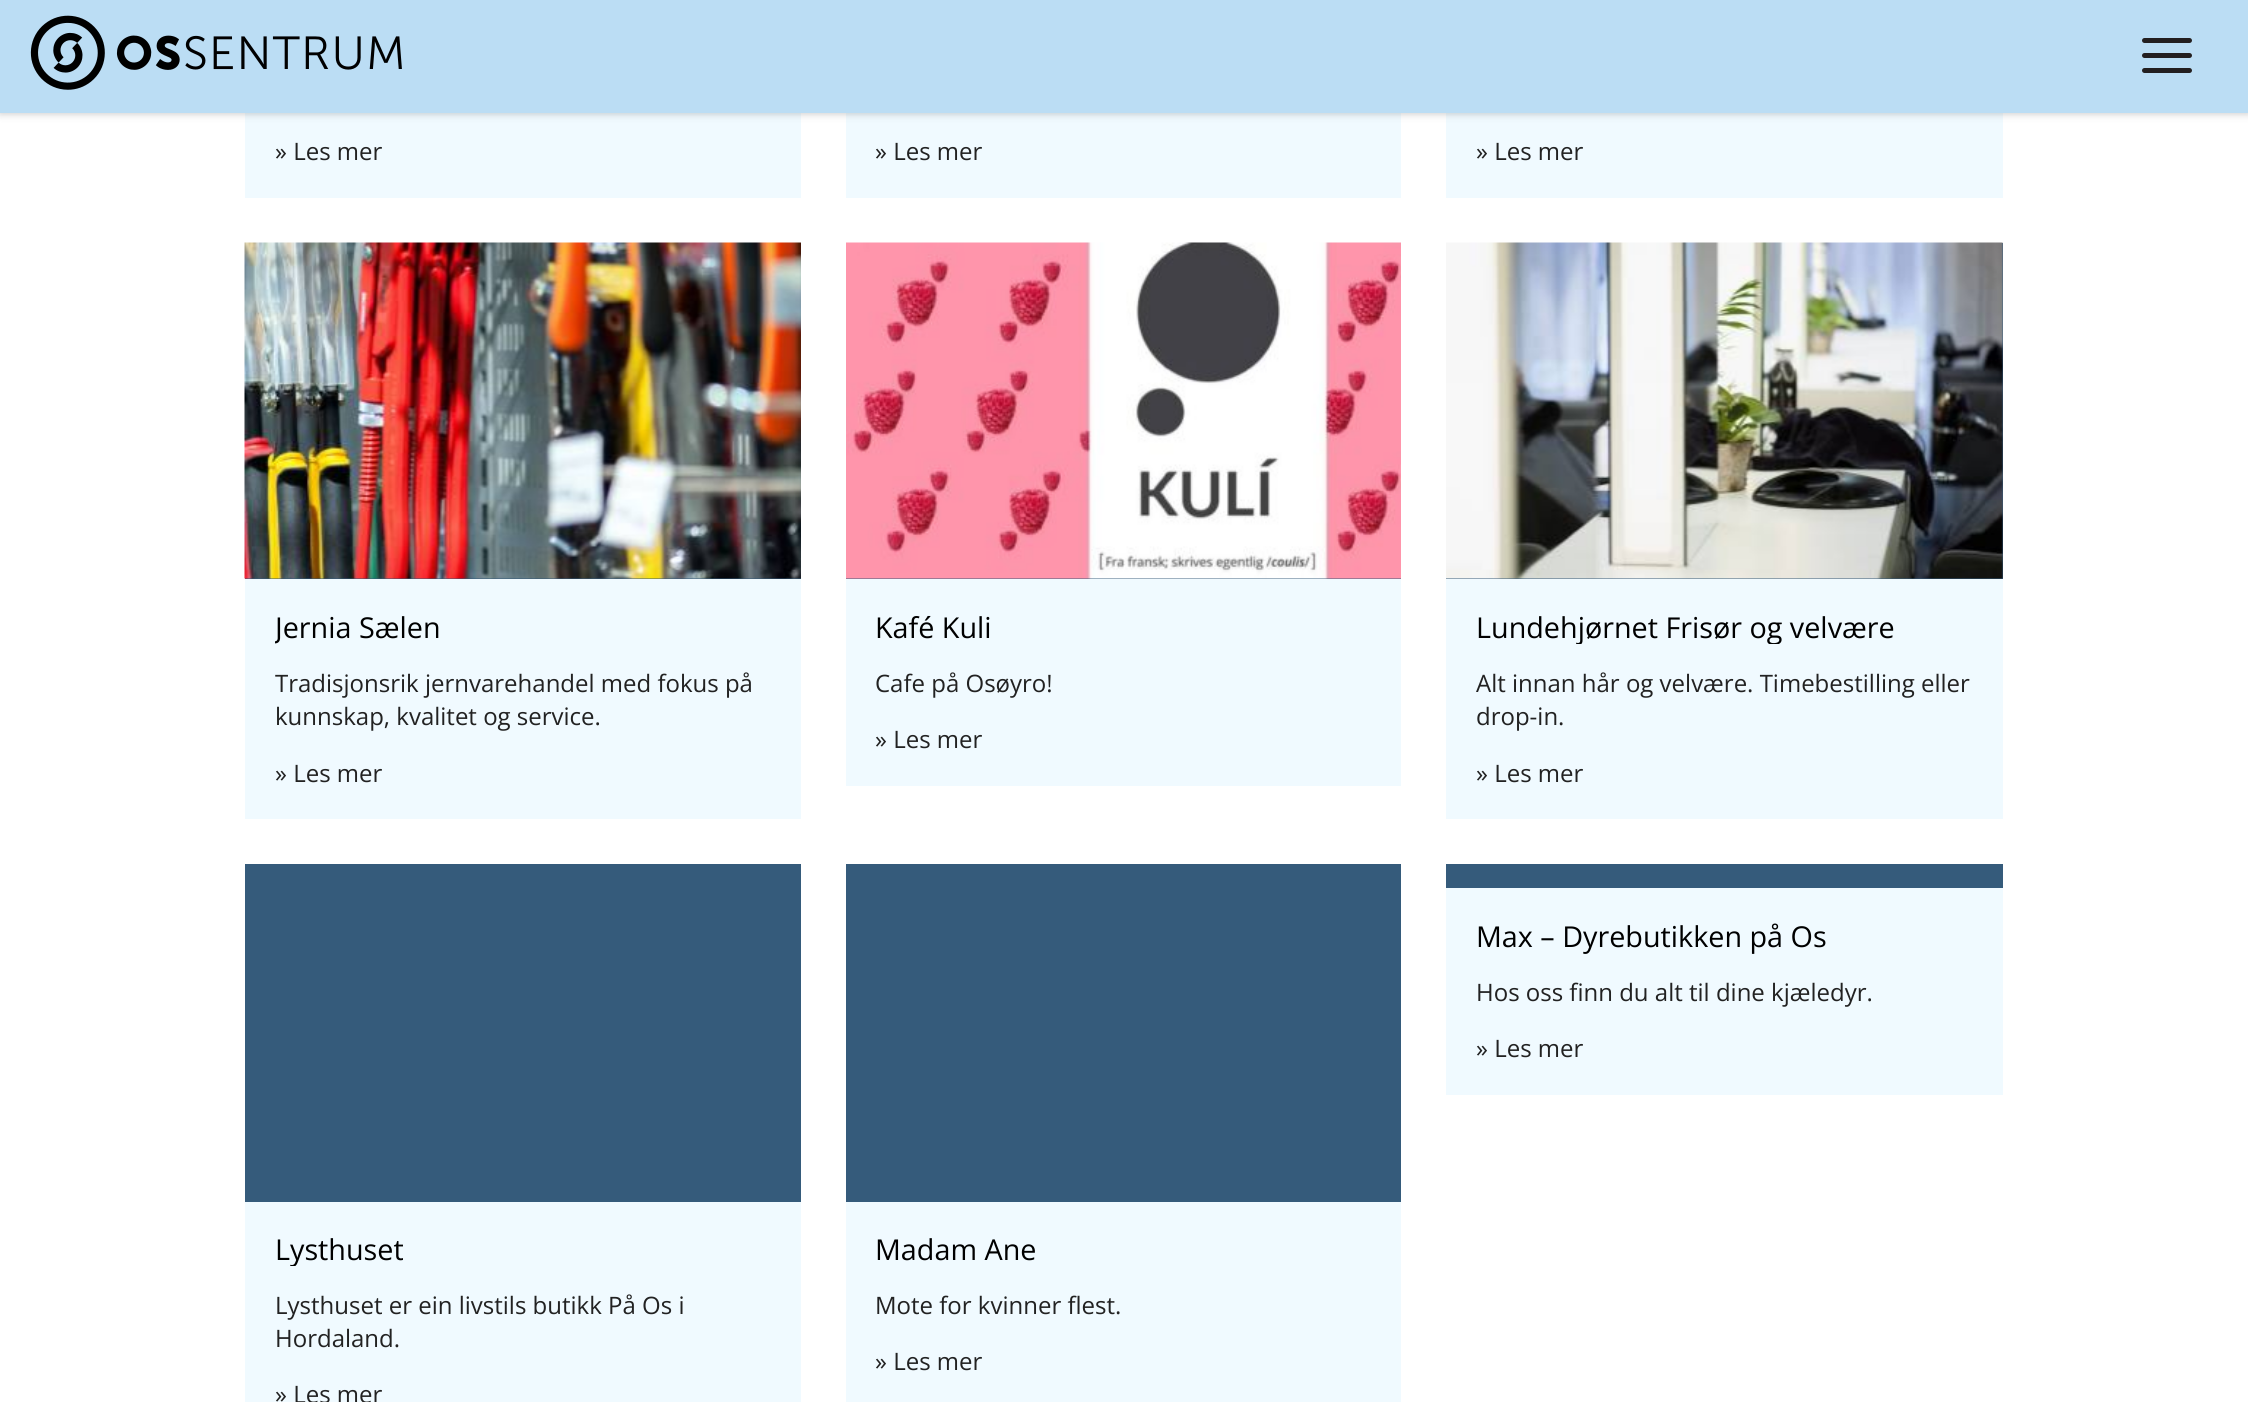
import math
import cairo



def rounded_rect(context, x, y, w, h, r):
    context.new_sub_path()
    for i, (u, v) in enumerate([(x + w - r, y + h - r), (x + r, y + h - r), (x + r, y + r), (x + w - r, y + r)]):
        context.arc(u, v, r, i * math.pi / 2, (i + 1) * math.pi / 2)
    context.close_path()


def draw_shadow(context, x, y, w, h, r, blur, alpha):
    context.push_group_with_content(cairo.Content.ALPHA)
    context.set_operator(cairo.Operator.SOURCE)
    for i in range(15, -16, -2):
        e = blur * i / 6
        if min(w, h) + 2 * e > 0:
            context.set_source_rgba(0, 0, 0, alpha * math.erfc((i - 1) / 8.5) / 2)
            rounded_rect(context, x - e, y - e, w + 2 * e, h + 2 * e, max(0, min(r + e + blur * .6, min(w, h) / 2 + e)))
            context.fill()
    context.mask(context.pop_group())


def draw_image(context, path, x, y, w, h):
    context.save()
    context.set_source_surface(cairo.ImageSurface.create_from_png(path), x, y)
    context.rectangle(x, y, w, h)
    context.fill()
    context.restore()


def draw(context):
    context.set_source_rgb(1, 1, 1)
    context.paint()
    context.set_source_rgb(240 / 255, 250 / 255, 1)
    context.rectangle(245, 113, 556, 85)
    context.fill()
    context.rectangle(846, 113, 555, 85)
    context.fill()
    context.rectangle(1446, 113, 557, 85)
    context.fill()
    context.set_source_rgb(0, 0, 0)
    draw_shadow(context, 0, 2, 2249, 112, 0, 4, 0.2)
    context.set_source_rgb(187 / 255, 221 / 255, 244 / 255)
    context.rectangle(0, 0, 2248, 113)
    context.fill()
    draw_image(context, "images/1.png", 30, 15, 372, 75)
    context.set_source_rgb(35 / 255, 31 / 255, 32 / 255)
    rounded_rect(context, 2142, 38, 50, 5, 2.5)
    context.fill()
    rounded_rect(context, 2142, 53, 50, 5, 2.5)
    context.fill()
    rounded_rect(context, 2142, 68, 50, 5, 2.5)
    context.fill()
    context.set_source_rgb(240 / 255, 250 / 255, 1)
    context.rectangle(245, 579, 556, 240)
    context.fill()
    context.set_source_rgb(53 / 255, 91 / 255, 123 / 255)
    context.rectangle(245, 243, 556, 336)
    context.fill()
    draw_image(context, "images/2.png", 244, 242, 557, 337)
    context.set_source_rgb(240 / 255, 250 / 255, 1)
    context.rectangle(846, 579, 555, 207)
    context.fill()
    context.set_source_rgb(53 / 255, 91 / 255, 123 / 255)
    context.rectangle(846, 578, 555, 1)
    context.fill()
    draw_image(context, "images/3.png", 846, 242, 555, 337)
    context.set_source_rgb(240 / 255, 250 / 255, 1)
    context.rectangle(1446, 579, 557, 240)
    context.fill()
    context.set_source_rgb(53 / 255, 91 / 255, 123 / 255)
    context.rectangle(1446, 243, 557, 336)
    context.fill()
    draw_image(context, "images/4.png", 1446, 242, 557, 337)
    context.set_source_rgb(240 / 255, 250 / 255, 1)
    context.rectangle(1446, 888, 557, 207)
    context.fill()
    context.set_source_rgb(53 / 255, 91 / 255, 123 / 255)
    context.rectangle(1446, 864, 557, 24)
    context.fill()
    context.set_source_rgb(240 / 255, 250 / 255, 1)
    context.rectangle(245, 1202, 556, 200)
    context.fill()
    context.set_source_rgb(53 / 255, 91 / 255, 123 / 255)
    context.rectangle(245, 864, 556, 338)
    context.fill()
    context.set_source_rgb(240 / 255, 250 / 255, 1)
    context.rectangle(846, 1202, 555, 200)
    context.fill()
    context.set_source_rgb(53 / 255, 91 / 255, 123 / 255)
    context.rectangle(846, 864, 555, 338)
    context.fill()
    context.select_font_face("Open Sans")
    context.set_font_size(24)
    context.set_source_rgb(34 / 255, 34 / 255, 34 / 255)
    context.move_to(275, 160)
    context.show_text("» Les mer")
    context.move_to(875, 160)
    context.show_text("» Les mer")
    context.move_to(1476, 160)
    context.show_text("» Les mer")
    context.save()
    context.rectangle(275, 609, 496, 35)
    context.clip()
    context.set_font_size(28.75)
    context.set_source_rgb(0, 0, 0)
    context.move_to(275, 638)
    context.show_text("Jernia Sælen")
    context.restore()
    context.move_to(275, 692)
    context.show_text("Tradisjonsrik jernvarehandel med fokus på")
    context.move_to(275, 725)
    context.show_text("kunnskap, kvalitet og service.")
    context.move_to(275, 782)
    context.show_text("» Les mer")
    context.set_font_size(28.75)
    context.set_source_rgb(0, 0, 0)
    context.move_to(875, 638)
    context.show_text("Kafé Kuli")
    context.set_font_size(24)
    context.set_source_rgb(34 / 255, 34 / 255, 34 / 255)
    context.move_to(875, 692)
    context.show_text("Cafe på Osøyro!")
    context.move_to(875, 748)
    context.show_text("» Les mer")
    context.save()
    context.rectangle(1476, 609, 497, 35)
    context.clip()
    context.set_font_size(28.75)
    context.set_source_rgb(0, 0, 0)
    context.move_to(1476, 638)
    context.show_text("Lundehjørnet Frisør og velvære")
    context.restore()
    context.move_to(1476, 692)
    context.show_text("Alt innan hår og velvære. Timebestilling eller")
    context.move_to(1476, 725)
    context.show_text("drop-in.")
    context.move_to(1476, 782)
    context.show_text("» Les mer")
    context.set_font_size(28.75)
    context.set_source_rgb(0, 0, 0)
    context.move_to(1476, 947)
    context.show_text("Max – Dyrebutikken på Os")
    context.set_font_size(24)
    context.set_source_rgb(34 / 255, 34 / 255, 34 / 255)
    context.move_to(1476, 1001)
    context.show_text("Hos oss finn du alt til dine kjæledyr.")
    context.move_to(1476, 1057)
    context.show_text("» Les mer")
    context.save()
    context.rectangle(275, 1232, 496, 34)
    context.clip()
    context.set_font_size(28.75)
    context.set_source_rgb(0, 0, 0)
    context.move_to(275, 1260)
    context.show_text("Lysthuset")
    context.restore()
    context.move_to(275, 1314)
    context.show_text("Lysthuset er ein livstils butikk På Os i")
    context.move_to(275, 1347)
    context.show_text("Hordaland.")
    context.move_to(275, 1403)
    context.show_text("» Les mer")
    context.set_font_size(28.75)
    context.set_source_rgb(0, 0, 0)
    context.move_to(875, 1260)
    context.show_text("Madam Ane")
    context.set_font_size(24)
    context.set_source_rgb(34 / 255, 34 / 255, 34 / 255)
    context.move_to(875, 1314)
    context.show_text("Mote for kvinner flest.")
    context.move_to(875, 1370)
    context.show_text("» Les mer")


surface = cairo.ImageSurface(cairo.Format.RGB24, 2248, 1402)
context = cairo.Context(surface)
options = cairo.FontOptions()
options.set_hint_metrics(cairo.HintMetrics.OFF)
options.set_hint_style(cairo.HintStyle.NONE)
context.set_font_options(options)
context.set_miter_limit(4)
draw(context)
surface.write_to_png("out.png")
